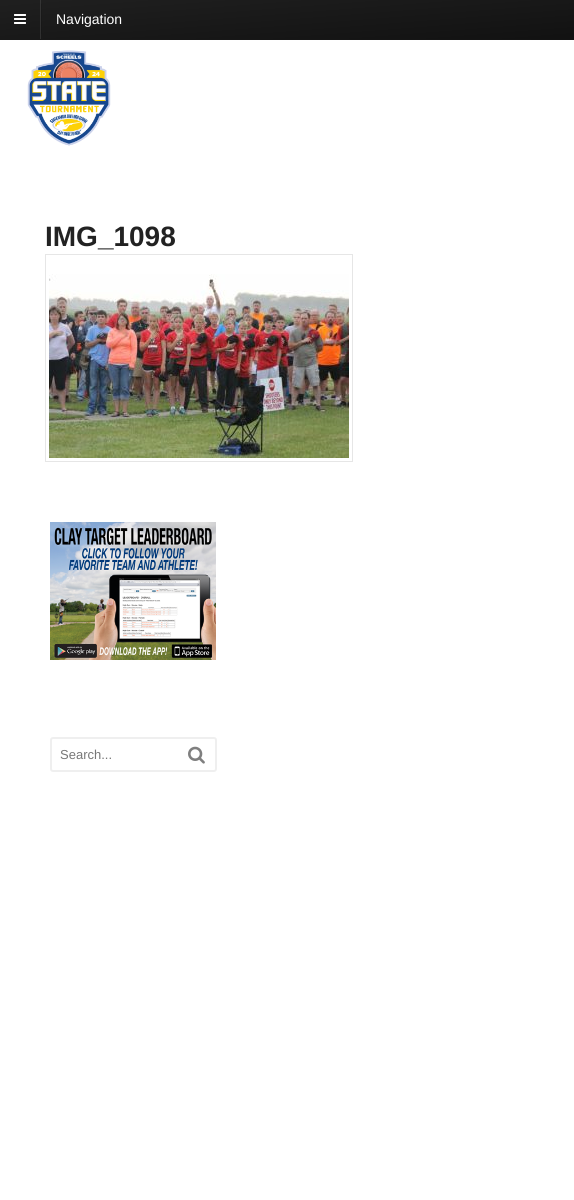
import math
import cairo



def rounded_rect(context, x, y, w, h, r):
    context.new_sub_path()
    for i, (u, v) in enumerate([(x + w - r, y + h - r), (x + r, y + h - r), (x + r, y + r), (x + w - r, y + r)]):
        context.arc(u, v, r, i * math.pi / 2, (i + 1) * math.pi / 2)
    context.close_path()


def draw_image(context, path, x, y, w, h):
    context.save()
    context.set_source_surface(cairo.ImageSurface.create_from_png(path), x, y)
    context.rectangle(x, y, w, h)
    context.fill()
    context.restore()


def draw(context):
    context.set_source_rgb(1, 1, 1)
    context.paint()
    gradient = cairo.LinearGradient(284, -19, 290, 58)
    gradient.add_color_stop_rgba(0, 31 / 255, 31 / 255, 31 / 255, 1)
    gradient.add_color_stop_rgba(1, 18 / 255, 18 / 255, 18 / 255, 1)
    context.set_source(gradient)
    context.rectangle(0, 0, 574, 39)
    context.fill()
    gradient = cairo.LinearGradient(284, -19, 290, 58)
    gradient.add_color_stop_rgba(0, 28 / 255, 28 / 255, 28 / 255, 1)
    gradient.add_color_stop_rgba(1, 16 / 255, 16 / 255, 16 / 255, 1)
    context.set_source(gradient)
    context.rectangle(41, 4, 1, 30)
    context.fill()
    gradient = cairo.LinearGradient(284, -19, 290, 58)
    gradient.add_color_stop_rgba(0, 53 / 255, 53 / 255, 53 / 255, 1)
    gradient.add_color_stop_rgba(1, 42 / 255, 42 / 255, 42 / 255, 1)
    context.set_source(gradient)
    context.rectangle(40, 0, 1, 39)
    context.fill()
    gradient = cairo.LinearGradient(284, 20, 290, 97)
    gradient.add_color_stop_rgba(0, 25 / 255, 25 / 255, 25 / 255, 1)
    gradient.add_color_stop_rgba(1, 14 / 255, 14 / 255, 14 / 255, 1)
    context.set_source(gradient)
    context.rectangle(0, 39, 574, 1)
    context.fill()
    draw_image(context, "images/1.png", 14, 14, 12, 10)
    draw_image(context, "images/2.png", 27, 50, 84, 96)
    context.rectangle(45.5, 254.5, 307, 207)
    context.set_source_rgb(230 / 255, 230 / 255, 230 / 255)
    context.set_line_width(1)
    context.stroke()
    draw_image(context, "images/3.png", 49, 274, 300, 184)
    draw_image(context, "images/4.png", 50, 522, 166, 138)
    rounded_rect(context, 51, 738, 165, 33, 2)
    context.set_source_rgb(239 / 255, 239 / 255, 239 / 255)
    context.set_line_width(2)
    context.stroke()
    draw_image(context, "images/5.png", 188, 746, 17, 18)
    context.select_font_face("Liberation Sans")
    context.set_font_size(14)
    context.set_source_rgb(1, 1, 1)
    context.move_to(56, 24)
    context.show_text("Navigation")
    context.select_font_face("Liberation Sans", cairo.FontSlant.NORMAL, cairo.FontWeight.BOLD)
    context.set_font_size(28)
    context.set_source_rgb(34 / 255, 34 / 255, 34 / 255)
    context.move_to(45, 246)
    context.show_text("IMG_1098")
    context.select_font_face("Liberation Sans")
    context.set_font_size(13)
    context.set_source_rgb(119 / 255, 119 / 255, 119 / 255)
    context.move_to(60, 759)
    context.show_text("Search...")


surface = cairo.ImageSurface(cairo.Format.RGB24, 574, 1200)
context = cairo.Context(surface)
options = cairo.FontOptions()
options.set_hint_metrics(cairo.HintMetrics.OFF)
options.set_hint_style(cairo.HintStyle.NONE)
context.set_font_options(options)
context.set_miter_limit(4)
draw(context)
surface.write_to_png("out.png")
